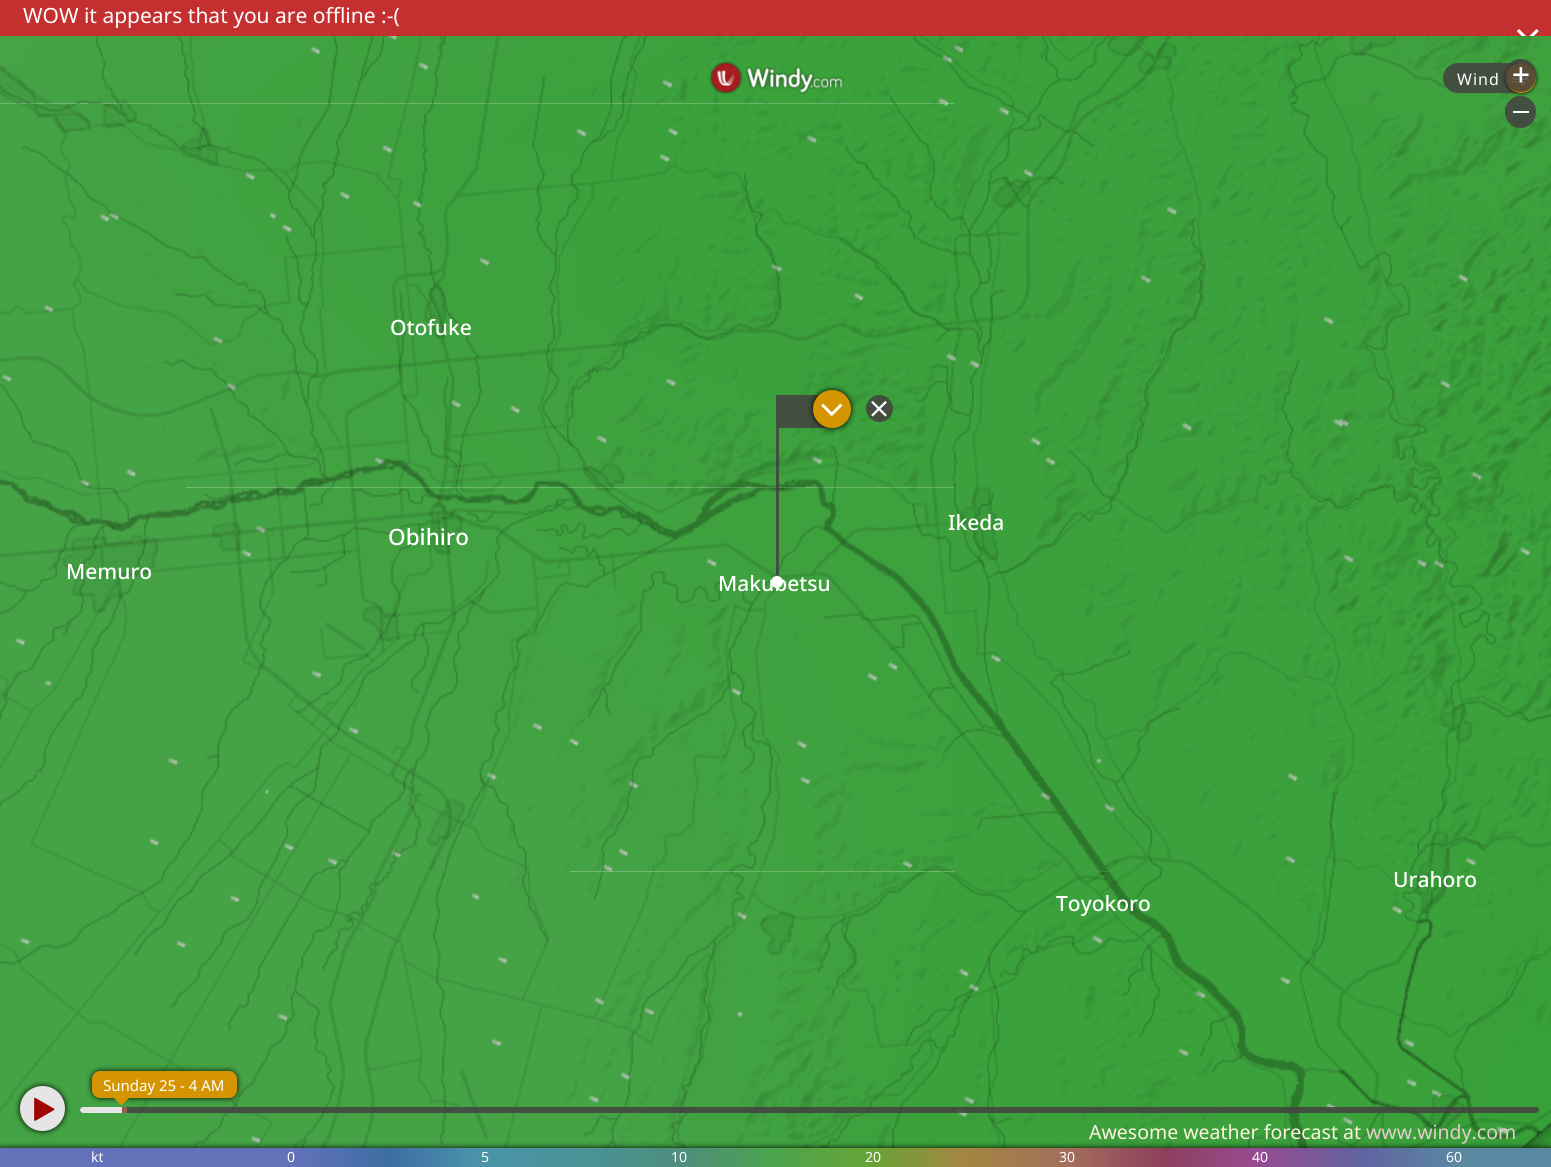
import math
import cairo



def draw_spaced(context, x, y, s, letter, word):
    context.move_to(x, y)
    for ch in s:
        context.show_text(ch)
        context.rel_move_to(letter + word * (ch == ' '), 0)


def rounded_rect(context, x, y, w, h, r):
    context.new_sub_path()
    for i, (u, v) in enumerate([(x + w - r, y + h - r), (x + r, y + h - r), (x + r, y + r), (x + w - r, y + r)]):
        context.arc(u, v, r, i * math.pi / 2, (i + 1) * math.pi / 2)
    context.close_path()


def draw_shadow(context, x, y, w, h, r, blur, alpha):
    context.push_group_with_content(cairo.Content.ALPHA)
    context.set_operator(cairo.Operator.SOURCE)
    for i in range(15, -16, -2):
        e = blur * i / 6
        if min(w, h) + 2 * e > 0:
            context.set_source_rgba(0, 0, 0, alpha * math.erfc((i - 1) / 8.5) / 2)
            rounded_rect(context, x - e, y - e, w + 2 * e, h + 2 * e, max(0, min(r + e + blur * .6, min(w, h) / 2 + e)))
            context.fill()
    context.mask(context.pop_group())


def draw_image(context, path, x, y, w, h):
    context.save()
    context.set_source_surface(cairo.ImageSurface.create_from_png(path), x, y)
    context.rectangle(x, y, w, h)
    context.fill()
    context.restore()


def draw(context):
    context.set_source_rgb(1, 1, 1)
    context.paint()
    context.set_source_rgb(196 / 255, 47 / 255, 47 / 255)
    context.rectangle(0, 0, 1551, 36)
    context.fill()
    draw_image(context, "images/1.png", 1516, 29, 23, 7)
    draw_image(context, "images/14.png", 570, 487, 384, 385)
    draw_image(context, "images/11.png", 570, 103, 384, 385)
    draw_image(context, "images/8.png", 570, 36, 384, 68)
    draw_image(context, "images/15.png", 570, 871, 384, 277)
    draw_image(context, "images/9.png", 0, 103, 186, 384)
    draw_image(context, "images/6.png", 0, 36, 186, 68)
    draw_image(context, "images/13.png", 186, 487, 384, 384)
    draw_image(context, "images/10.png", 186, 103, 384, 385)
    draw_image(context, "images/7.png", 186, 36, 384, 68)
    context.set_source_rgb(59 / 255, 161 / 255, 59 / 255)
    context.rectangle(954, 36, 384, 67)
    context.fill()
    context.set_source_rgb(62 / 255, 161 / 255, 62 / 255)
    context.rectangle(1338, 36, 213, 68)
    context.fill()
    context.set_source_rgb(60 / 255, 161 / 255, 60 / 255)
    context.rectangle(954, 103, 384, 769)
    context.fill()
    draw_image(context, "images/12.png", 1338, 104, 213, 383)
    context.set_source_rgb(69 / 255, 163 / 255, 69 / 255)
    context.rectangle(0, 487, 186, 385)
    context.fill()
    context.set_source_rgb(59 / 255, 161 / 255, 59 / 255)
    context.rectangle(1338, 487, 213, 385)
    context.fill()
    context.set_source_rgb(68 / 255, 163 / 255, 68 / 255)
    context.rectangle(0, 872, 186, 276)
    context.fill()
    context.set_source_rgb(69 / 255, 163 / 255, 69 / 255)
    context.rectangle(186, 871, 384, 277)
    context.fill()
    context.set_source_rgb(59 / 255, 161 / 255, 59 / 255)
    context.rectangle(954, 872, 384, 276)
    context.fill()
    draw_image(context, "images/16.png", 1338, 872, 213, 276)
    draw_image(context, "images/37.png", 1, 36, 1530, 1108)
    draw_image(context, "images/29.png", 570, 487, 384, 385)
    draw_image(context, "images/24.png", 570, 103, 384, 385)
    draw_image(context, "images/19.png", 570, 36, 384, 68)
    draw_image(context, "images/2.png", 709, 61, 34, 34)
    draw_image(context, "images/3.png", 745, 66, 99, 29)
    draw_image(context, "images/21.png", 1338, 36, 213, 68)
    context.set_source_rgba(68 / 255, 65 / 255, 65 / 255, 0.84)
    rounded_rect(context, 1443, 63, 93, 30, 15)
    context.fill()
    context.set_source_rgb(0, 0, 0)
    draw_shadow(context, 1506, 63, 30, 30, 15, 2, 1)
    context.set_source_rgb(212 / 255, 149 / 255, 0)
    context.arc(1521, 78, 15, 0, 2 * math.pi)
    context.fill()
    draw_image(context, "images/4.png", 1512, 73, 17, 12)
    context.set_source_rgba(68 / 255, 65 / 255, 65 / 255, 0.84)
    rounded_rect(context, 1505, 59, 31, 33, 15.5)
    context.fill()
    draw_image(context, "images/5.png", 1513, 67, 16, 16)
    draw_image(context, "images/26.png", 1338, 104, 213, 384)
    rounded_rect(context, 1505, 96, 31, 32, 15.5)
    context.fill()
    context.set_source_rgb(1, 1, 1)
    context.rectangle(1513, 111, 16, 2)
    context.fill()
    draw_image(context, "images/17.png", 0, 36, 186, 68)
    draw_image(context, "images/28.png", 186, 487, 384, 385)
    draw_image(context, "images/23.png", 186, 103, 384, 385)
    draw_image(context, "images/18.png", 186, 36, 360, 68)
    draw_image(context, "images/30.png", 954, 487, 384, 385)
    draw_image(context, "images/25.png", 954, 103, 384, 385)
    draw_image(context, "images/20.png", 954, 36, 384, 68)
    draw_image(context, "images/22.png", 0, 104, 186, 384)
    draw_image(context, "images/27.png", 0, 488, 186, 384)
    draw_image(context, "images/31.png", 1338, 488, 213, 384)
    draw_image(context, "images/32.png", 0, 872, 186, 276)
    draw_image(context, "images/33.png", 186, 872, 384, 276)
    draw_image(context, "images/34.png", 570, 872, 384, 276)
    draw_image(context, "images/35.png", 954, 872, 384, 276)
    draw_image(context, "images/36.png", 1338, 872, 213, 276)
    context.set_source_rgba(68 / 255, 65 / 255, 65 / 255, 0.84)
    context.new_path()
    context.move_to(779, 395)
    context.line_to(822.5, 395)
    context.curve_to(831.5, 395, 839, 402.5, 839, 411.5)
    context.curve_to(839, 420.5, 831.5, 428, 822.5, 428)
    context.line_to(779, 428)
    context.close_path()
    context.fill()
    context.set_source_rgb(0, 0, 0)
    draw_shadow(context, 813, 390, 38, 38, 19, 3, 1)
    context.set_source_rgb(212 / 255, 149 / 255, 0)
    context.arc(832, 409, 19, 0, 2 * math.pi)
    context.fill()
    draw_image(context, "images/38.png", 821, 403, 22, 13)
    context.set_source_rgba(68 / 255, 65 / 255, 65 / 255, 0.84)
    context.arc(879.5, 408.5, 13.5, 0, 2 * math.pi)
    context.fill()
    draw_image(context, "images/39.png", 871, 401, 16, 16)
    context.set_source_rgb(0, 0, 0)
    draw_shadow(context, 20, 1086, 45, 45, 22.5, 3, 1)
    context.set_source_rgb(229 / 255, 229 / 255, 229 / 255)
    context.arc(42.5, 1108.5, 22.5, 0, 2 * math.pi)
    context.fill()
    draw_image(context, "images/40.png", 34, 1097, 21, 24)
    context.set_source_rgb(0, 0, 0)
    draw_shadow(context, 92, 1071, 145, 27, 8, 3, 1)
    context.set_source_rgb(212 / 255, 149 / 255, 0)
    rounded_rect(context, 92, 1071, 145, 27, 8)
    context.fill()
    context.new_path()
    context.move_to(114, 1098)
    context.line_to(129, 1098)
    context.line_to(121.5, 1105.5)
    context.close_path()
    context.fill()
    context.set_source_rgba(68 / 255, 65 / 255, 65 / 255, 0.84)
    rounded_rect(context, 80, 1107, 1459, 6, 3)
    context.fill()
    context.set_source_rgb(229 / 255, 229 / 255, 229 / 255)
    context.new_path()
    context.move_to(83, 1107)
    context.line_to(122, 1107)
    context.line_to(122, 1113)
    context.line_to(83, 1113)
    context.curve_to(81.5, 1113, 80, 1111.5, 80, 1110)
    context.curve_to(80, 1108.5, 81.5, 1107, 83, 1107)
    context.close_path()
    context.fill()
    context.set_source_rgb(148 / 255, 96 / 255, 81 / 255)
    context.rectangle(122, 1107, 5, 6)
    context.fill()
    context.set_source_rgb(0, 0, 0)
    draw_shadow(context, 0, 1148, 1551, 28, 0, 3, 1)
    gradient = cairo.LinearGradient(0, 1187, 1551, 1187)
    gradient.add_color_stop_rgba(0, 98 / 255, 113 / 255, 184 / 255, 1)
    gradient.add_color_stop_rgba(0.19, 98 / 255, 113 / 255, 184 / 255, 1)
    gradient.add_color_stop_rgba(0.25, 61 / 255, 110 / 255, 163 / 255, 1)
    gradient.add_color_stop_rgba(0.31, 74 / 255, 148 / 255, 170 / 255, 1)
    gradient.add_color_stop_rgba(0.38, 74 / 255, 146 / 255, 148 / 255, 1)
    gradient.add_color_stop_rgba(0.44, 77 / 255, 142 / 255, 124 / 255, 1)
    gradient.add_color_stop_rgba(0.5, 76 / 255, 164 / 255, 76 / 255, 1)
    gradient.add_color_stop_rgba(0.56, 103 / 255, 164 / 255, 54 / 255, 1)
    gradient.add_color_stop_rgba(0.62, 162 / 255, 135 / 255, 64 / 255, 1)
    gradient.add_color_stop_rgba(0.69, 162 / 255, 109 / 255, 92 / 255, 1)
    gradient.add_color_stop_rgba(0.75, 141 / 255, 63 / 255, 92 / 255, 1)
    gradient.add_color_stop_rgba(0.81, 151 / 255, 75 / 255, 145 / 255, 1)
    gradient.add_color_stop_rgba(0.88, 95 / 255, 100 / 255, 160 / 255, 1)
    gradient.add_color_stop_rgba(0.94, 91 / 255, 136 / 255, 161 / 255, 1)
    gradient.add_color_stop_rgba(1, 91 / 255, 136 / 255, 161 / 255, 1)
    context.set_source(gradient)
    context.rectangle(0, 1148, 1551, 19)
    context.fill()
    context.select_font_face("Noto Sans")
    context.set_font_size(21)
    context.set_source_rgb(1, 1, 1)
    context.move_to(23, 23)
    context.show_text("WOW it appears that you are offline :-(")
    context.set_font_size(16)
    draw_spaced(context, 1457, 85, "Wind", 1, 0)
    context.select_font_face("Noto Sans Medium")
    context.set_font_size(21)
    context.move_to(390, 335)
    context.show_text("Otofuke")
    context.move_to(948, 530)
    context.show_text("Ikeda")
    context.set_font_size(22.5)
    context.move_to(388, 545)
    context.show_text("Obihiro")
    context.set_font_size(21)
    context.move_to(66, 579)
    context.show_text("Memuro")
    context.move_to(718, 591)
    context.show_text("Makubetsu")
    context.move_to(1393, 887)
    context.show_text("Urahoro")
    context.move_to(1056, 911)
    context.show_text("Toyokoro")
    context.set_source_rgba(68 / 255, 65 / 255, 65 / 255, 0.84)
    context.rectangle(776, 395, 3, 187)
    context.fill()
    context.set_source_rgb(1, 1, 1)
    context.arc(777, 582, 6, 0, 2 * math.pi)
    context.fill()
    context.select_font_face("Noto Sans")
    context.set_font_size(15)
    context.move_to(103, 1091)
    context.show_text("Sunday 25 - 4 AM")
    context.set_font_size(19.5)
    context.set_source_rgb(1, 243 / 255, 225 / 255)
    context.move_to(1089, 1139)
    context.show_text("Awesome weather forecast at")
    context.set_source_rgb(230 / 255, 206 / 255, 206 / 255)
    context.move_to(1366, 1139)
    context.show_text("www.windy.com")
    context.set_font_size(14)
    context.set_source_rgb(1, 1, 1)
    context.move_to(91, 1162)
    context.show_text("kt")
    context.move_to(287, 1162)
    context.show_text("0")
    context.move_to(481, 1162)
    context.show_text("5")
    context.move_to(671, 1162)
    context.show_text("10")
    context.move_to(865, 1162)
    context.show_text("20")
    context.move_to(1059, 1162)
    context.show_text("30")
    context.move_to(1252, 1162)
    context.show_text("40")
    context.move_to(1446, 1162)
    context.show_text("60")


surface = cairo.ImageSurface(cairo.Format.RGB24, 1551, 1167)
context = cairo.Context(surface)
options = cairo.FontOptions()
options.set_hint_metrics(cairo.HintMetrics.OFF)
options.set_hint_style(cairo.HintStyle.NONE)
context.set_font_options(options)
context.set_miter_limit(4)
draw(context)
surface.write_to_png("out.png")
